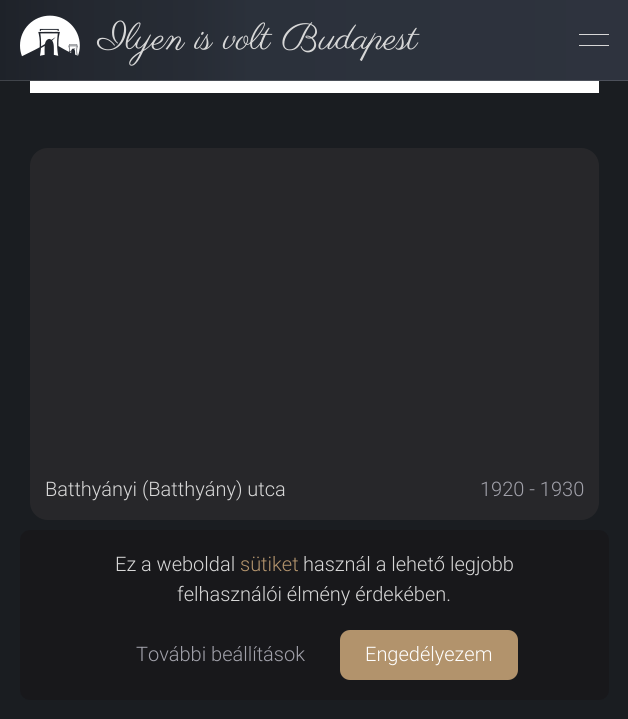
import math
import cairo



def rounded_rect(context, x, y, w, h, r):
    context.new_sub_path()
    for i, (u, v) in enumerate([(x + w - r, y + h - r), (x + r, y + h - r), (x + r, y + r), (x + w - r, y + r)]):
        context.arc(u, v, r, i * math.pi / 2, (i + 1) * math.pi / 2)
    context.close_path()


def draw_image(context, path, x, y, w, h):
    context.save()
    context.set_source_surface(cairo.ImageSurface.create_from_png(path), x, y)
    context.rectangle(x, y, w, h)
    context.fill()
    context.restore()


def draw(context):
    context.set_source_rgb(26 / 255, 29 / 255, 33 / 255)
    context.paint()
    gradient = cairo.LinearGradient(0, 360, 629, 360)
    gradient.add_color_stop_rgba(0, 30 / 255, 34 / 255, 41 / 255, 1)
    gradient.add_color_stop_rgba(0.1, 35 / 255, 39 / 255, 47 / 255, 1)
    gradient.add_color_stop_rgba(0.2, 37 / 255, 42 / 255, 50 / 255, 1)
    gradient.add_color_stop_rgba(0.3, 39 / 255, 44 / 255, 53 / 255, 1)
    gradient.add_color_stop_rgba(0.4, 43 / 255, 49 / 255, 59 / 255, 1)
    gradient.add_color_stop_rgba(1, 46 / 255, 51 / 255, 62 / 255, 1)
    context.set_source(gradient)
    context.rectangle(0, 0, 628, 81)
    context.fill()
    context.set_source_rgba(1, 1, 1, 0.15)
    context.rectangle(0, 80, 628, 1)
    context.fill()
    draw_image(context, "images/1.png", 20, 15, 60, 42)
    context.set_source_rgb(215 / 255, 215 / 255, 215 / 255)
    context.rectangle(579, 34, 30, 1)
    context.fill()
    context.rectangle(579, 45, 30, 1)
    context.fill()
    context.set_source_rgb(1, 1, 1)
    context.rectangle(30, 81, 569, 12)
    context.fill()
    context.set_source_rgb(39 / 255, 39 / 255, 42 / 255)
    context.new_path()
    context.move_to(48, 148)
    context.line_to(581, 148)
    context.curve_to(591, 148, 599, 156, 599, 166)
    context.line_to(599, 460)
    context.line_to(30, 460)
    context.line_to(30, 166)
    context.curve_to(30, 156, 38, 148, 48, 148)
    context.close_path()
    context.fill()
    context.new_path()
    context.move_to(30, 460)
    context.line_to(599, 460)
    context.line_to(599, 502)
    context.curve_to(599, 512, 591, 520, 581, 520)
    context.line_to(48, 520)
    context.curve_to(38, 520, 30, 512, 30, 502)
    context.close_path()
    context.fill()
    context.set_source_rgba(24 / 255, 24 / 255, 27 / 255, 0.9)
    rounded_rect(context, 20, 530, 589, 170, 10)
    context.fill()
    context.set_source_rgb(178 / 255, 147 / 255, 108 / 255)
    rounded_rect(context, 340, 630, 178, 50, 10)
    context.fill()
    context.select_font_face("Parisienne")
    context.set_font_size(37.5)
    context.set_source_rgb(215 / 255, 215 / 255, 215 / 255)
    context.move_to(98, 49)
    context.show_text("Ilyen is volt Budapest")
    context.select_font_face("Roboto Light")
    context.set_font_size(20)
    context.move_to(45, 496)
    context.show_text("Batthyányi (Batthyány) utca")
    context.set_source_rgb(161 / 255, 161 / 255, 170 / 255)
    context.move_to(480, 496)
    context.show_text("1920 - 1930")
    context.set_source_rgb(215 / 255, 215 / 255, 215 / 255)
    context.move_to(115, 571)
    context.show_text("Ez a weboldal")
    context.set_source_rgb(178 / 255, 147 / 255, 108 / 255)
    context.move_to(240, 571)
    context.show_text("sütiket")
    context.set_source_rgb(215 / 255, 215 / 255, 215 / 255)
    context.move_to(303, 571)
    context.show_text("használ a lehető legjobb")
    context.move_to(177, 601)
    context.show_text("felhasználói élmény érdekében.")
    context.set_source_rgb(161 / 255, 161 / 255, 170 / 255)
    context.move_to(136, 661)
    context.show_text("További beállítások")
    context.set_source_rgb(1, 1, 1)
    context.move_to(365, 661)
    context.show_text("Engedélyezem")


surface = cairo.ImageSurface(cairo.Format.RGB24, 628, 719)
context = cairo.Context(surface)
options = cairo.FontOptions()
options.set_hint_metrics(cairo.HintMetrics.OFF)
options.set_hint_style(cairo.HintStyle.NONE)
context.set_font_options(options)
context.set_miter_limit(4)
draw(context)
surface.write_to_png("out.png")
